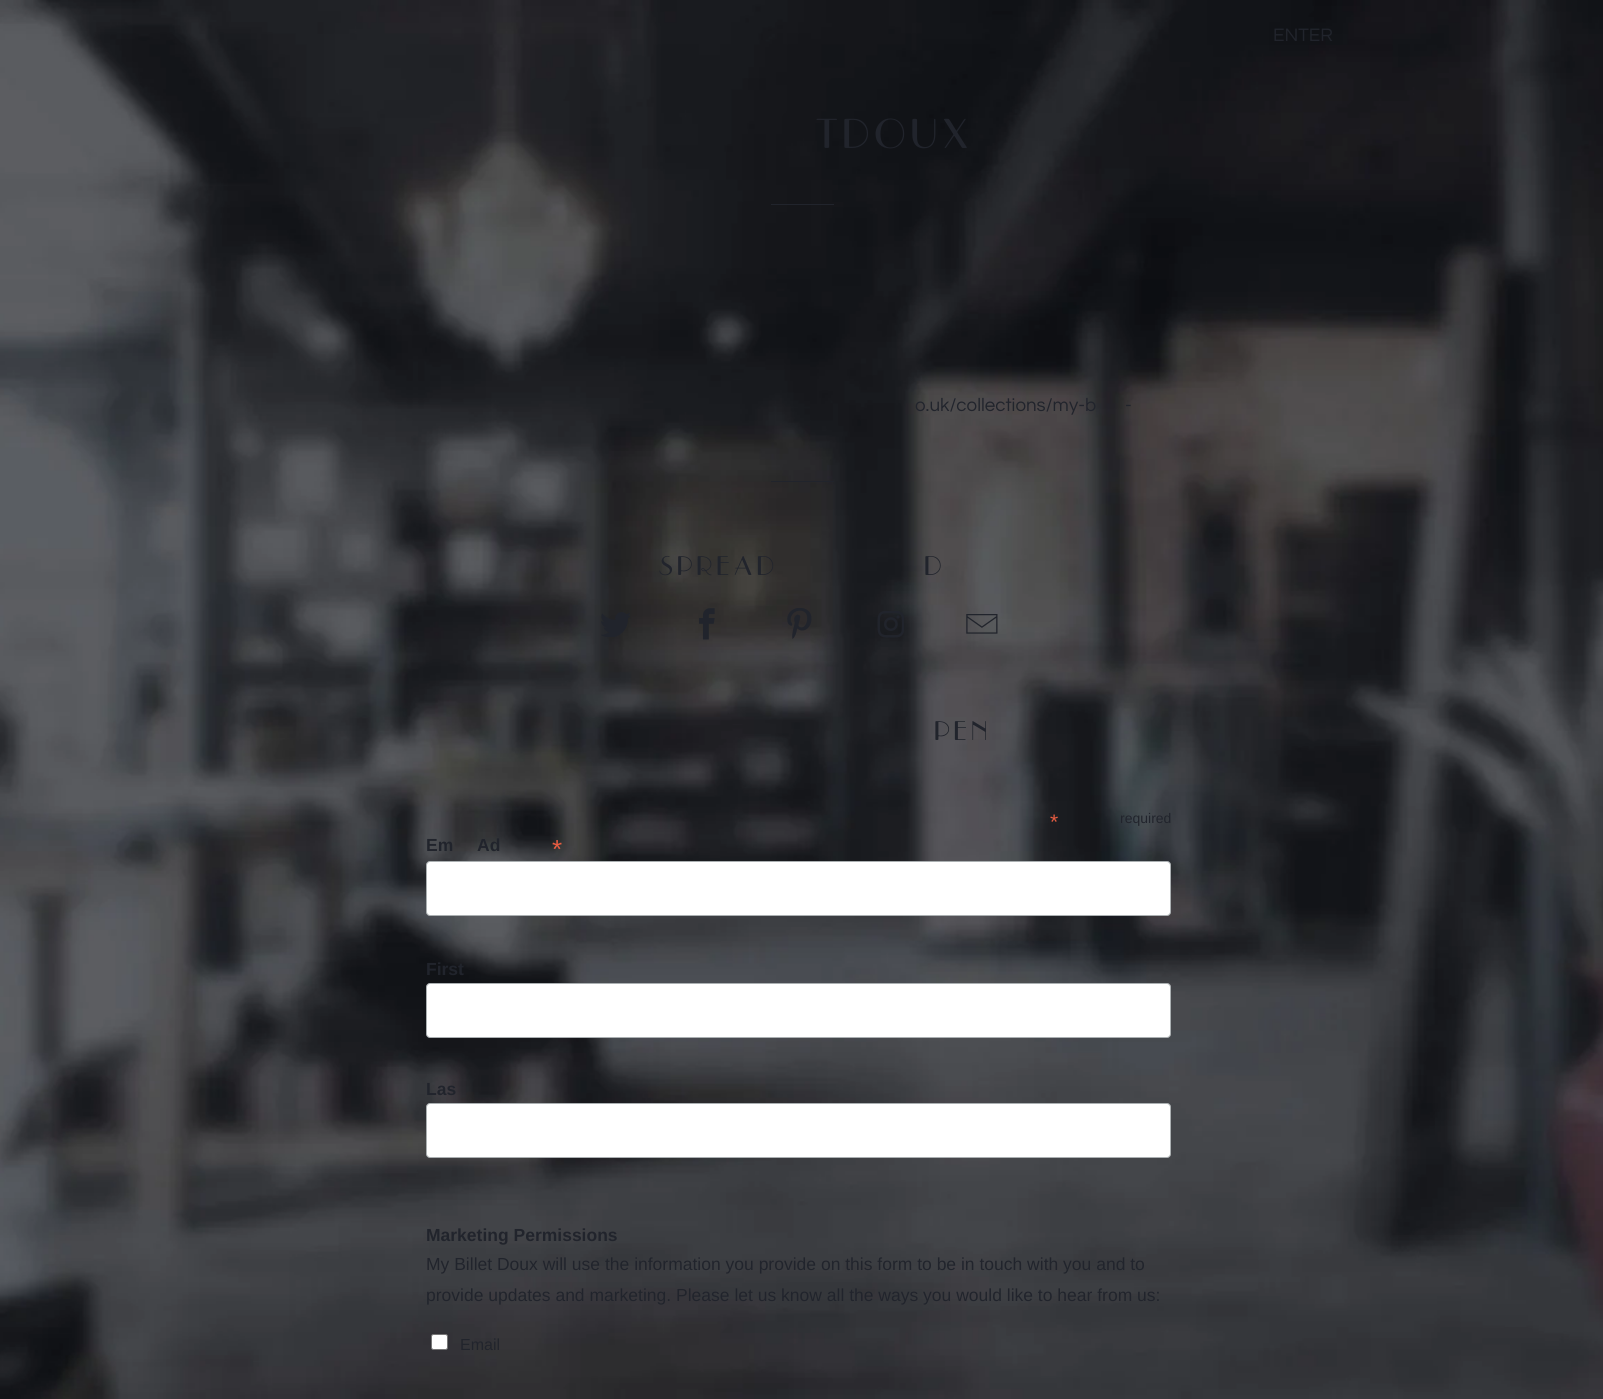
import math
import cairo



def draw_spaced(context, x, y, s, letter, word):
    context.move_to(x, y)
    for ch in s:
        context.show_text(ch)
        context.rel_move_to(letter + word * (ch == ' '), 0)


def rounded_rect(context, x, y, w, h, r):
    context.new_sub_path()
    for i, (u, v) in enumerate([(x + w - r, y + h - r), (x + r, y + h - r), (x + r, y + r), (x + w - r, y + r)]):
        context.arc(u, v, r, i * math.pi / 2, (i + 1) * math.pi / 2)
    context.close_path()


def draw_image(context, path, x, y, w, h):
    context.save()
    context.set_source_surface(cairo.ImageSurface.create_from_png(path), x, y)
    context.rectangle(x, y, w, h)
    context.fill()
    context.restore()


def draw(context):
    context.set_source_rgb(1, 1, 1)
    context.paint()
    draw_image(context, "images/1.png", 0, 0, 1603, 1399)
    context.set_source_rgb(33 / 255, 36 / 255, 44 / 255)
    context.rectangle(771, 204, 63, 1)
    context.fill()
    context.rectangle(771, 481, 63, 1)
    context.fill()
    draw_image(context, "images/2.png", 601, 612, 29, 25)
    draw_image(context, "images/3.png", 699, 608, 16, 32)
    draw_image(context, "images/4.png", 787, 608, 25, 31)
    draw_image(context, "images/5.png", 877, 611, 27, 27)
    draw_image(context, "images/6.png", 966, 614, 32, 20)
    context.set_source_rgb(1, 1, 1)
    rounded_rect(context, 426.5, 861.5, 744, 54, 3.5)
    context.fill_preserve()
    context.set_source_rgb(171 / 255, 176 / 255, 178 / 255)
    context.set_line_width(1)
    context.stroke()
    context.set_source_rgb(1, 1, 1)
    rounded_rect(context, 426.5, 983.5, 744, 54, 3.5)
    context.fill_preserve()
    context.set_source_rgb(171 / 255, 176 / 255, 178 / 255)
    context.stroke()
    context.set_source_rgb(1, 1, 1)
    rounded_rect(context, 426.5, 1103.5, 744, 54, 3.5)
    context.fill_preserve()
    context.set_source_rgb(171 / 255, 176 / 255, 178 / 255)
    context.stroke()
    context.set_source_rgb(1, 1, 1)
    rounded_rect(context, 431.5, 1334.5, 16, 15, 2)
    context.fill_preserve()
    context.set_source_rgb(118 / 255, 118 / 255, 118 / 255)
    context.stroke()
    context.select_font_face("Questrial")
    context.set_font_size(18.75)
    context.set_source_rgb(33 / 255, 36 / 255, 44 / 255)
    context.move_to(1273, 41)
    context.show_text("ENTER")
    context.select_font_face("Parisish")
    context.set_font_size(42.5)
    draw_spaced(context, 814, 148, "TDOUX", 2.5, 0)
    context.select_font_face("Questrial")
    context.set_font_size(18.75)
    context.move_to(915, 411)
    context.show_text("o.uk/collections/my-b")
    context.move_to(1125, 411)
    context.show_text("-")
    context.select_font_face("Parisish")
    context.set_font_size(27.5)
    draw_spaced(context, 658, 575, "SPREAD", 2.5, 0)
    draw_spaced(context, 924, 575, "D", 2.5, 0)
    draw_spaced(context, 934, 740, "PEN", 2.5, 0)
    context.select_font_face("Liberation Sans")
    context.set_font_size(21)
    context.set_source_rgb(232 / 255, 92 / 255, 65 / 255)
    context.move_to(1050, 829)
    context.show_text("*")
    context.set_font_size(14)
    context.set_source_rgb(33 / 255, 36 / 255, 44 / 255)
    context.move_to(1120, 823)
    context.show_text("required")
    context.select_font_face("Liberation Sans", cairo.FontSlant.NORMAL, cairo.FontWeight.BOLD)
    context.set_font_size(17.5)
    context.move_to(426, 851)
    context.show_text("Em")
    context.move_to(477, 851)
    context.show_text("Ad")
    context.select_font_face("Liberation Sans")
    context.set_font_size(26)
    context.set_source_rgb(232 / 255, 92 / 255, 65 / 255)
    context.move_to(552, 858)
    context.show_text("*")
    context.select_font_face("Liberation Sans", cairo.FontSlant.NORMAL, cairo.FontWeight.BOLD)
    context.set_font_size(17.5)
    context.set_source_rgb(33 / 255, 36 / 255, 44 / 255)
    context.move_to(426, 975)
    context.show_text("First")
    context.move_to(426, 1095)
    context.show_text("Las")
    context.move_to(426, 1241)
    context.show_text("Marketing Permissions")
    context.select_font_face("Liberation Sans")
    context.move_to(426, 1270)
    context.show_text("My Billet Doux will use the information you provide on this form to be in touch with you and to")
    context.move_to(426, 1301)
    context.show_text("provide updates and marketing. Please let us know all the ways you would like to hear from us:")
    context.set_font_size(16)
    context.move_to(460, 1350)
    context.show_text("Email")


surface = cairo.ImageSurface(cairo.Format.RGB24, 1603, 1399)
context = cairo.Context(surface)
options = cairo.FontOptions()
options.set_hint_metrics(cairo.HintMetrics.OFF)
options.set_hint_style(cairo.HintStyle.NONE)
context.set_font_options(options)
context.set_miter_limit(4)
draw(context)
surface.write_to_png("out.png")
